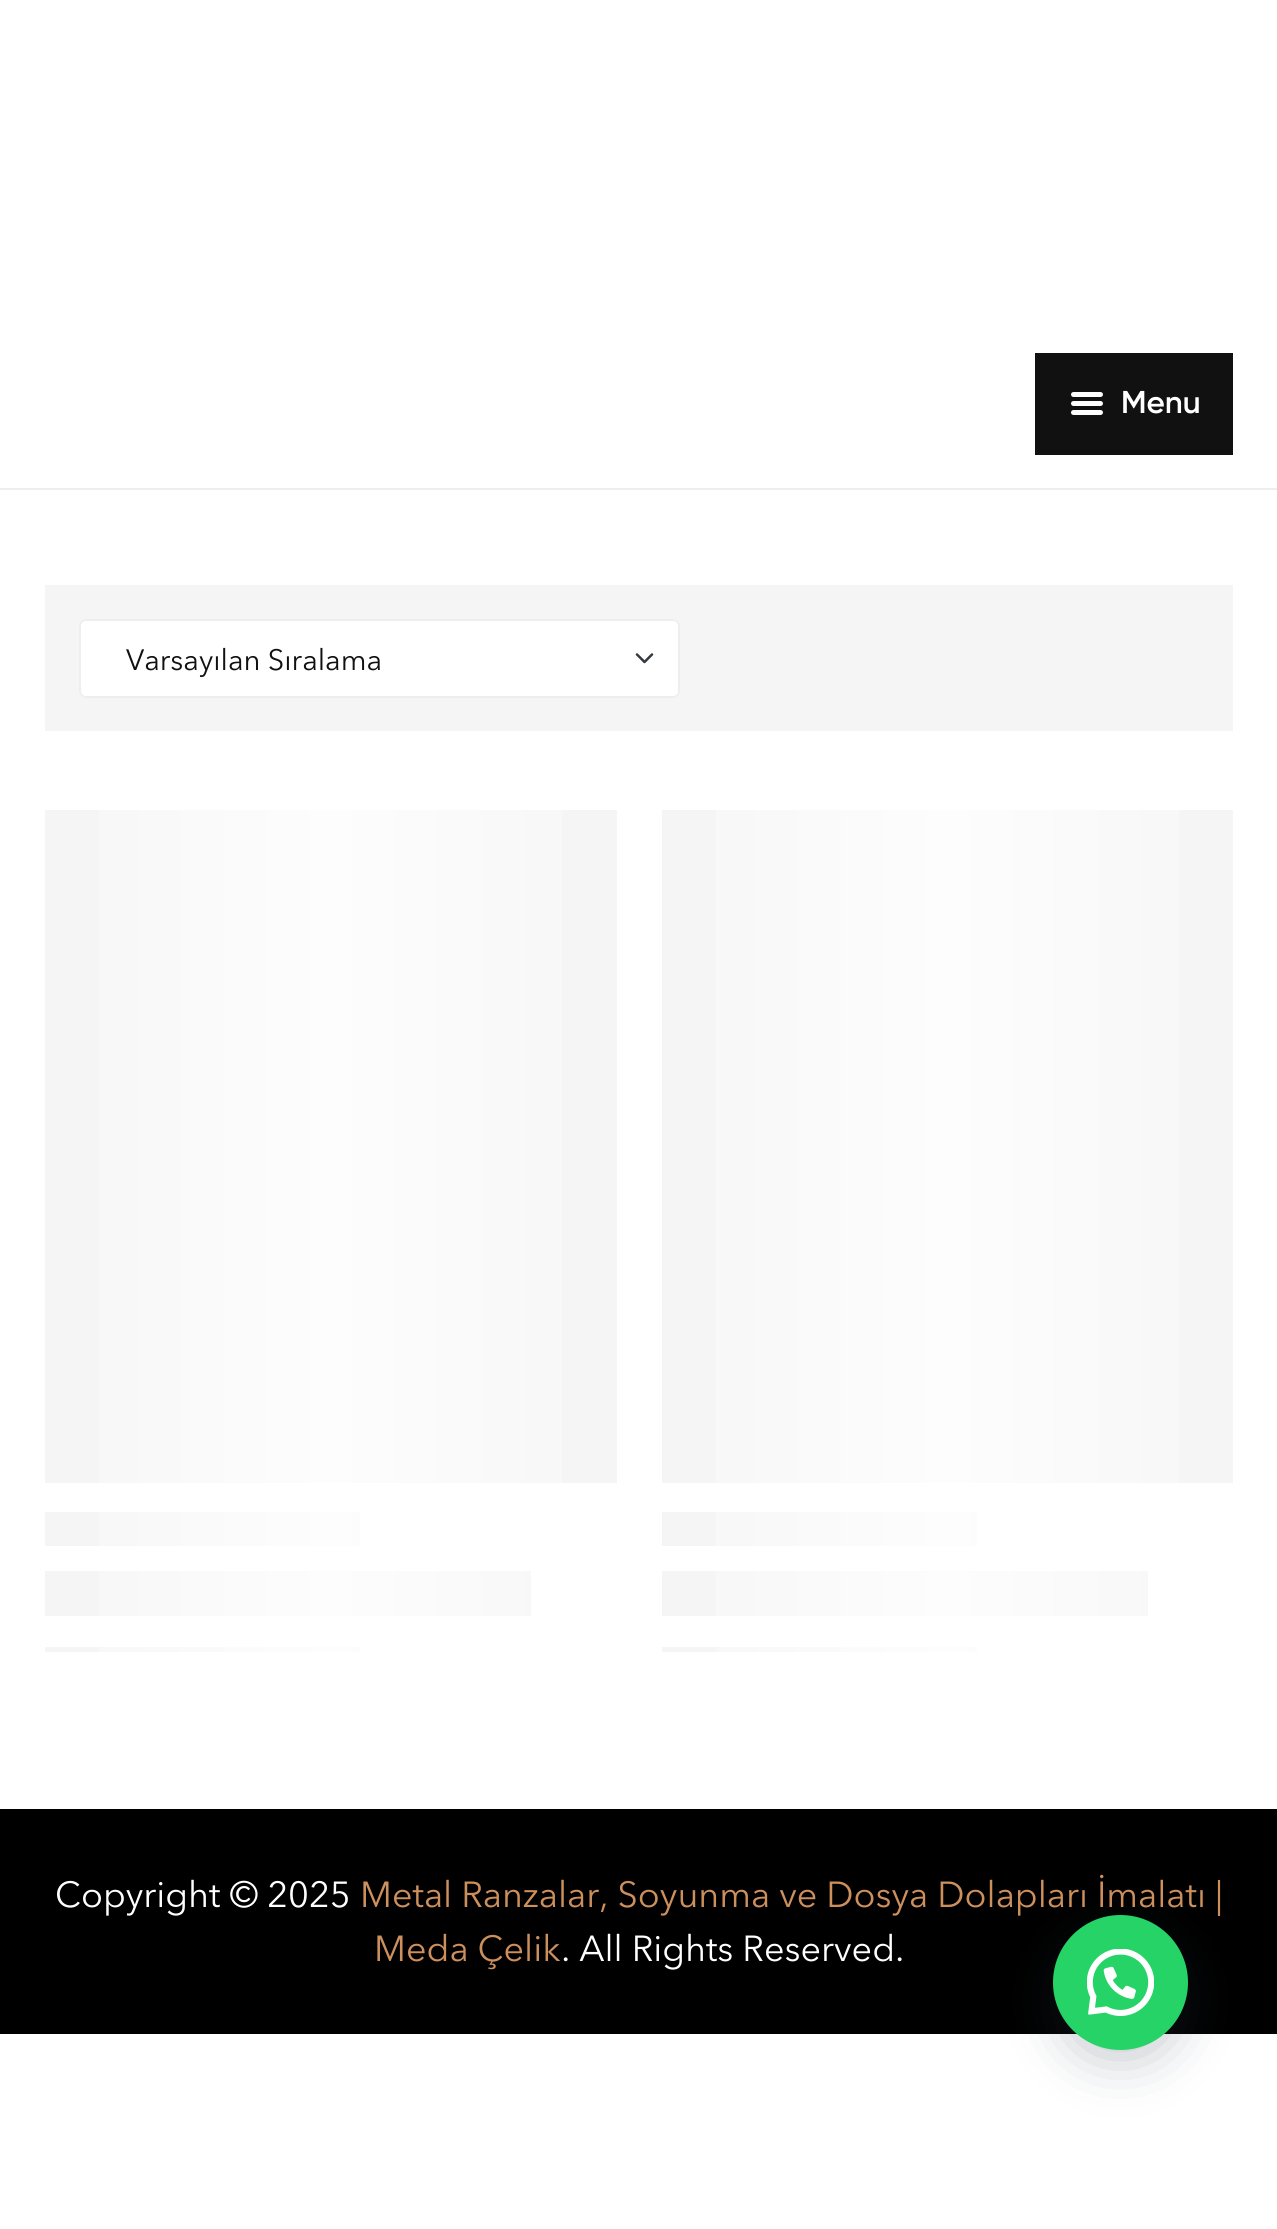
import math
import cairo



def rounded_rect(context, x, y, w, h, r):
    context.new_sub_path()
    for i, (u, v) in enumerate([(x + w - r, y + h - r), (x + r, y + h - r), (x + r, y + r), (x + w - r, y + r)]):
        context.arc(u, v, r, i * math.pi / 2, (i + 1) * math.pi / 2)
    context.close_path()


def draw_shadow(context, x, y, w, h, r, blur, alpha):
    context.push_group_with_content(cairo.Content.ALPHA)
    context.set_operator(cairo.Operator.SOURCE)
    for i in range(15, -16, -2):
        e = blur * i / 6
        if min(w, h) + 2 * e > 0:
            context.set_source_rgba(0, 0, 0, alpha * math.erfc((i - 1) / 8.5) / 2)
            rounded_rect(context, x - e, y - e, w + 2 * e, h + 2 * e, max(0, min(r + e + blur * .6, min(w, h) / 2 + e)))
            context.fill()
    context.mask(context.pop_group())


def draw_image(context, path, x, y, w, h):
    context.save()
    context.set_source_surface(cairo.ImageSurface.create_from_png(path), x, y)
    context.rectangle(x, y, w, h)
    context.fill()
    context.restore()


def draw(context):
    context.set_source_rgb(1, 1, 1)
    context.paint()
    context.set_source_rgb(238 / 255, 238 / 255, 238 / 255)
    context.rectangle(0, 488, 1277, 2)
    context.fill()
    context.set_source_rgb(17 / 255, 17 / 255, 17 / 255)
    context.rectangle(1035, 353, 198, 102)
    context.fill()
    context.set_source_rgb(1, 1, 1)
    rounded_rect(context, 1071, 392, 32, 5, 2.5)
    context.fill()
    rounded_rect(context, 1071, 401, 32, 5, 2.5)
    context.fill()
    rounded_rect(context, 1071, 410, 32, 5, 2.5)
    context.fill()
    context.set_source_rgb(245 / 255, 245 / 255, 245 / 255)
    context.rectangle(45, 585, 1188, 146)
    context.fill()
    context.set_source_rgb(1, 1, 1)
    rounded_rect(context, 79, 619, 601, 79, 7)
    context.fill()
    context.new_path()
    context.move_to(637, 654.5)
    context.line_to(644.5, 662)
    context.line_to(652, 654.5)
    context.set_source_rgb(52 / 255, 58 / 255, 64 / 255)
    context.set_line_width(2.5)
    context.set_line_cap(cairo.LineCap.ROUND)
    context.set_line_join(cairo.LineJoin.ROUND)
    context.stroke()
    rounded_rect(context, 80, 620, 599, 77, 6)
    context.set_source_rgb(238 / 255, 238 / 255, 238 / 255)
    context.set_line_width(2)
    context.set_line_cap(cairo.LineCap.BUTT)
    context.set_line_join(cairo.LineJoin.MITER)
    context.stroke()
    context.set_source_rgb(245 / 255, 245 / 255, 245 / 255)
    context.rectangle(45, 1571, 486, 45)
    context.fill()
    context.rectangle(45, 1512, 315, 34)
    context.fill()
    context.rectangle(45, 810, 572, 673)
    context.fill()
    context.rectangle(45, 1647, 315, 5)
    context.fill()
    gradient = cairo.LinearGradient(-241, 1231, 902, 1231)
    gradient.add_color_stop_rgba(0.2, 1, 1, 1, 0)
    gradient.add_color_stop_rgba(0.5, 1, 1, 1, 0.8)
    gradient.add_color_stop_rgba(0.8, 1, 1, 1, 0)
    context.set_source(gradient)
    context.rectangle(99, 810, 463, 842)
    context.fill()
    context.set_source_rgb(245 / 255, 245 / 255, 245 / 255)
    context.rectangle(662, 1571, 486, 45)
    context.fill()
    context.rectangle(662, 1512, 315, 34)
    context.fill()
    context.rectangle(662, 810, 571, 673)
    context.fill()
    context.rectangle(662, 1647, 315, 5)
    context.fill()
    gradient = cairo.LinearGradient(376, 1231, 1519, 1231)
    gradient.add_color_stop_rgba(0.2, 1, 1, 1, 0)
    gradient.add_color_stop_rgba(0.5, 1, 1, 1, 0.8)
    gradient.add_color_stop_rgba(0.8, 1, 1, 1, 0)
    context.set_source(gradient)
    context.rectangle(716, 810, 463, 842)
    context.fill()
    context.set_source_rgb(0, 0, 0)
    context.rectangle(0, 1809, 1277, 225)
    context.fill()
    context.set_source_rgb(45 / 255, 62 / 255, 79 / 255)
    draw_shadow(context, 1064, 1944, 113, 113, 56.5, 28, 0.3)
    context.select_font_face("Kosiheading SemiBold")
    context.set_font_size(31.5)
    context.set_source_rgb(1, 1, 1)
    context.move_to(1121, 413)
    context.show_text("Menu")
    context.select_font_face("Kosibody")
    context.set_font_size(29.25)
    context.set_source_rgb(17 / 255, 17 / 255, 17 / 255)
    context.move_to(126, 670)
    context.show_text("Varsayılan Sıralama")
    context.set_font_size(36)
    context.set_source_rgb(1, 1, 1)
    context.move_to(55, 1907)
    context.show_text("Copyright © 2025")
    context.set_source_rgb(205 / 255, 143 / 255, 92 / 255)
    context.move_to(360, 1907)
    context.show_text("Metal Ranzalar, Soyunma ve Dosya Dolapları İmalatı |")
    context.set_source_rgb(37 / 255, 211 / 255, 102 / 255)
    context.new_path()
    context.arc(1120.5, 1982.5, 67.5, 0, 2 * math.pi)
    context.fill()
    draw_image(context, "images/1.png", 1087, 1949, 67, 67)
    context.set_source_rgb(205 / 255, 143 / 255, 92 / 255)
    context.move_to(374, 1961)
    context.show_text("Meda Çelik")
    context.set_source_rgb(1, 1, 1)
    context.move_to(561, 1961)
    context.show_text(". All Rights Reserved.")


surface = cairo.ImageSurface(cairo.Format.RGB24, 1277, 2229)
context = cairo.Context(surface)
options = cairo.FontOptions()
options.set_hint_metrics(cairo.HintMetrics.OFF)
options.set_hint_style(cairo.HintStyle.NONE)
context.set_font_options(options)
context.set_miter_limit(4)
draw(context)
surface.write_to_png("out.png")
